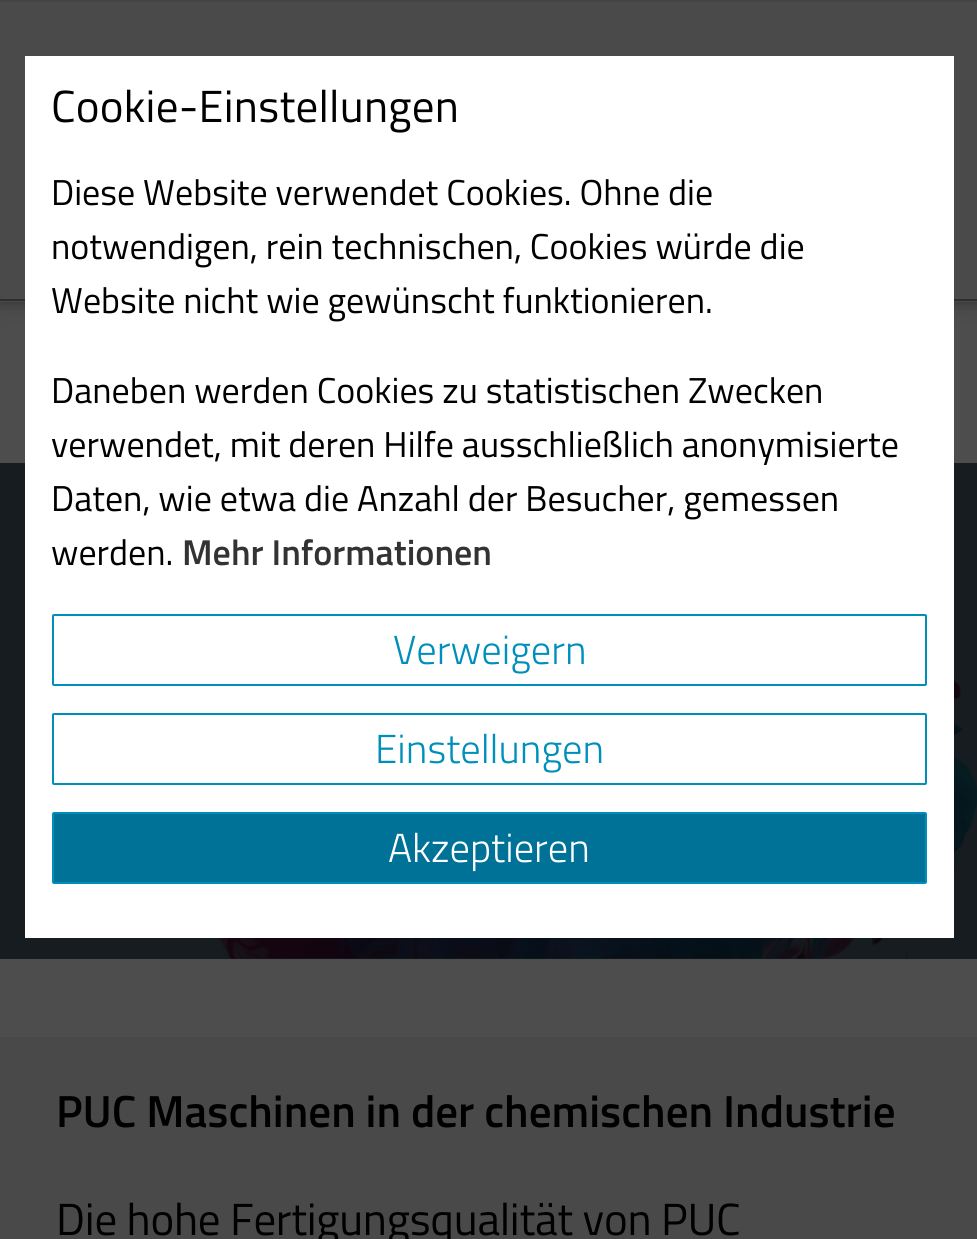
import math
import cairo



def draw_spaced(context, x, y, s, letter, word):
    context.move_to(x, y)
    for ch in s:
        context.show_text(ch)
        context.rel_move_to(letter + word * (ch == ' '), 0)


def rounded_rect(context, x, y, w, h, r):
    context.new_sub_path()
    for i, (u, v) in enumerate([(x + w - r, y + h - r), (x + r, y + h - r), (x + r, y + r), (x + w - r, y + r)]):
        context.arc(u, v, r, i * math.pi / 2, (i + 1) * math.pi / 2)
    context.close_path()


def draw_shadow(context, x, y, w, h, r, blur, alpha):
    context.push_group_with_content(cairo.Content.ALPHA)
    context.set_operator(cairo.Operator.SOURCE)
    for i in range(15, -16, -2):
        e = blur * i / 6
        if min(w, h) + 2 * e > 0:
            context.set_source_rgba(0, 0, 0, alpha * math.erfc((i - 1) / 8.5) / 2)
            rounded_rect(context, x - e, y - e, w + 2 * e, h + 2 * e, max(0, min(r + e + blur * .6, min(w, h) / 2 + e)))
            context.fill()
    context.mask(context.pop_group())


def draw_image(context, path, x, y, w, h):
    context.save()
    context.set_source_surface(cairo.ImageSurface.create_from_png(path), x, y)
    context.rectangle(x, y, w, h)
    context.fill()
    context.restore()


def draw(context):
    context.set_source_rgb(77 / 255, 77 / 255, 77 / 255)
    context.paint()
    context.set_source_rgb(23 / 255, 28 / 255, 32 / 255)
    context.rectangle(0, 463, 977, 496)
    context.fill()
    context.set_source_rgb(46 / 255, 46 / 255, 46 / 255)
    draw_shadow(context, 0, 0, 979, 302, 0, 8, 1)
    context.set_source_rgb(74 / 255, 74 / 255, 74 / 255)
    context.rectangle(0, 2, 977, 300)
    context.fill()
    context.set_source_rgb(69 / 255, 69 / 255, 69 / 255)
    context.rectangle(0, 0, 977, 2)
    context.fill()
    context.set_source_rgb(46 / 255, 46 / 255, 46 / 255)
    context.rectangle(0, 299, 977, 2)
    context.fill()
    draw_image(context, "images/1.png", 115, 463, 862, 496)
    context.set_source_rgb(1, 1, 1)
    context.rectangle(25, 56, 929, 882)
    context.fill()
    rounded_rect(context, 53, 615, 873, 70, 1)
    context.set_source_rgb(0, 143 / 255, 187 / 255)
    context.stroke()
    rounded_rect(context, 53, 714, 873, 70, 1)
    context.stroke()
    context.set_source_rgb(0, 114 / 255, 152 / 255)
    rounded_rect(context, 53, 813, 873, 70, 1)
    context.fill_preserve()
    context.set_source_rgb(0, 143 / 255, 187 / 255)
    context.stroke()
    context.set_source_rgb(73 / 255, 73 / 255, 73 / 255)
    context.rectangle(0, 1037, 977, 202)
    context.fill()
    context.select_font_face("Titillium Web")
    context.set_font_size(45)
    context.set_source_rgb(0, 0, 0)
    draw_spaced(context, 51, 122, "Cookie-Einstellungen", 0.25, 0)
    context.set_font_size(36)
    context.move_to(51, 205)
    context.show_text("Diese Website verwendet Cookies. Ohne die")
    context.move_to(51, 259)
    context.show_text("notwendigen, rein technischen, Cookies würde die")
    context.move_to(51, 313)
    context.show_text("Website nicht wie gewünscht funktionieren.")
    context.move_to(51, 403)
    context.show_text("Daneben werden Cookies zu statistischen Zwecken")
    context.move_to(51, 457)
    context.show_text("verwendet, mit deren Hilfe ausschließlich anonymisierte")
    context.move_to(51, 511)
    context.show_text("Daten, wie etwa die Anzahl der Besucher, gemessen")
    context.move_to(51, 565)
    context.show_text("werden.")
    context.select_font_face("Titillium Web SemiBold")
    context.set_source_rgb(51 / 255, 51 / 255, 51 / 255)
    context.move_to(182, 565)
    context.show_text("Mehr Informationen")
    context.select_font_face("Titillium Web Light")
    context.set_font_size(40.5)
    context.set_source_rgb(0, 143 / 255, 187 / 255)
    context.move_to(393, 664)
    context.show_text("Verweigern")
    context.move_to(375, 763)
    context.show_text("Einstellungen")
    context.set_source_rgb(1, 1, 1)
    context.move_to(388, 862)
    context.show_text("Akzeptieren")
    context.select_font_face("Titillium Web SemiBold")
    context.set_font_size(45)
    context.set_source_rgb(0, 0, 0)
    context.move_to(56, 1127)
    context.show_text("PUC Maschinen in der chemischen Industrie")
    context.select_font_face("Titillium Web")
    draw_spaced(context, 56, 1235, "Die hohe Fertigungsqualität von PUC", -0.25, 0)


surface = cairo.ImageSurface(cairo.Format.RGB24, 977, 1239)
context = cairo.Context(surface)
options = cairo.FontOptions()
options.set_hint_metrics(cairo.HintMetrics.OFF)
options.set_hint_style(cairo.HintStyle.NONE)
context.set_font_options(options)
context.set_miter_limit(4)
draw(context)
surface.write_to_png("out.png")
